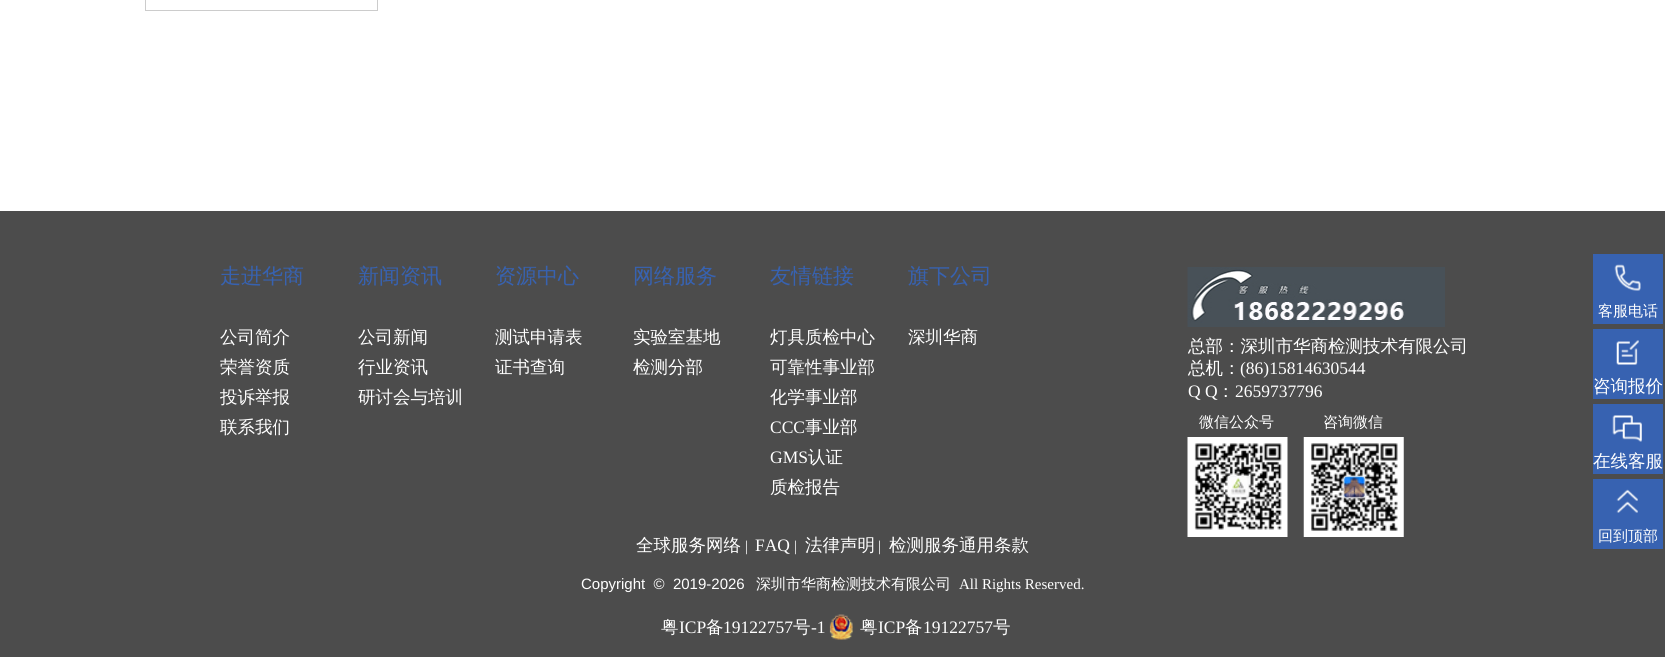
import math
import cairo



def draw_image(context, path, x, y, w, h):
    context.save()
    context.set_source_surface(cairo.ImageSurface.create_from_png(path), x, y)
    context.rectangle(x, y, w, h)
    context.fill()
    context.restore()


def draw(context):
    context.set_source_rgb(1, 1, 1)
    context.paint()
    context.rectangle(145.5, -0.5, 232, 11)
    context.set_source_rgb(204 / 255, 204 / 255, 204 / 255)
    context.set_line_width(1)
    context.stroke()
    context.set_source_rgb(76 / 255, 76 / 255, 76 / 255)
    context.rectangle(0, 211, 1665, 446)
    context.fill()
    draw_image(context, "images/1.png", 1187, 267, 258, 60)
    draw_image(context, "images/2.png", 1187, 437, 101, 100)
    draw_image(context, "images/3.png", 1303, 437, 101, 100)
    draw_image(context, "images/4.png", 829, 614, 24, 26)
    context.set_source_rgb(55 / 255, 98 / 255, 177 / 255)
    context.rectangle(1593, 254, 70, 70)
    context.fill()
    draw_image(context, "images/5.png", 1614, 264, 27, 27)
    context.rectangle(1593, 329, 70, 70)
    context.fill()
    draw_image(context, "images/6.png", 1616, 340, 23, 25)
    context.rectangle(1593, 404, 70, 70)
    context.fill()
    draw_image(context, "images/7.png", 1612, 415, 30, 27)
    context.rectangle(1593, 479, 70, 70)
    context.fill()
    draw_image(context, "images/8.png", 1616, 489, 22, 24)
    context.select_font_face("WenQuanYi Zen Hei Medium")
    context.set_font_size(21)
    context.move_to(220, 283)
    context.show_text("走进华商")
    context.set_font_size(17.5)
    context.set_source_rgb(1, 1, 1)
    context.move_to(220, 343)
    context.show_text("公司简介")
    context.move_to(220, 373)
    context.show_text("荣誉资质")
    context.move_to(220, 403)
    context.show_text("投诉举报")
    context.move_to(220, 433)
    context.show_text("联系我们")
    context.set_font_size(21)
    context.set_source_rgb(55 / 255, 98 / 255, 177 / 255)
    context.move_to(358, 283)
    context.show_text("新闻资讯")
    context.set_font_size(17.5)
    context.set_source_rgb(1, 1, 1)
    context.move_to(358, 343)
    context.show_text("公司新闻")
    context.move_to(358, 373)
    context.show_text("行业资讯")
    context.move_to(358, 403)
    context.show_text("研讨会与培训")
    context.set_font_size(21)
    context.set_source_rgb(55 / 255, 98 / 255, 177 / 255)
    context.move_to(495, 283)
    context.show_text("资源中心")
    context.set_font_size(17.5)
    context.set_source_rgb(1, 1, 1)
    context.move_to(495, 343)
    context.show_text("测试申请表")
    context.move_to(495, 373)
    context.show_text("证书查询")
    context.set_font_size(21)
    context.set_source_rgb(55 / 255, 98 / 255, 177 / 255)
    context.move_to(633, 283)
    context.show_text("网络服务")
    context.set_font_size(17.5)
    context.set_source_rgb(1, 1, 1)
    context.move_to(633, 343)
    context.show_text("实验室基地")
    context.move_to(633, 373)
    context.show_text("检测分部")
    context.set_font_size(21)
    context.set_source_rgb(55 / 255, 98 / 255, 177 / 255)
    context.move_to(770, 283)
    context.show_text("友情链接")
    context.set_font_size(17.5)
    context.set_source_rgb(1, 1, 1)
    context.move_to(770, 343)
    context.show_text("灯具质检中心")
    context.move_to(770, 373)
    context.show_text("可靠性事业部")
    context.move_to(770, 403)
    context.show_text("化学事业部")
    context.select_font_face("Liberation Serif")
    context.move_to(770, 433)
    context.show_text("CCC")
    context.select_font_face("WenQuanYi Zen Hei Medium")
    context.move_to(805, 433)
    context.show_text("事业部")
    context.select_font_face("Liberation Serif")
    context.move_to(770, 463)
    context.show_text("GMS")
    context.select_font_face("WenQuanYi Zen Hei Medium")
    context.move_to(808, 463)
    context.show_text("认证")
    context.move_to(770, 493)
    context.show_text("质检报告")
    context.set_font_size(21)
    context.set_source_rgb(55 / 255, 98 / 255, 177 / 255)
    context.move_to(908, 283)
    context.show_text("旗下公司")
    context.set_font_size(17.5)
    context.set_source_rgb(1, 1, 1)
    context.move_to(908, 343)
    context.show_text("深圳华商")
    context.move_to(1188, 352)
    context.show_text("总部：深圳市华商检测技术有限公司")
    context.move_to(1188, 374)
    context.show_text("总机：")
    context.select_font_face("Liberation Serif")
    context.move_to(1240, 374)
    context.show_text("(86)15814630544")
    context.move_to(1188, 397)
    context.show_text("Q Q")
    context.select_font_face("WenQuanYi Zen Hei Medium")
    context.move_to(1217, 397)
    context.show_text("：")
    context.select_font_face("Liberation Serif")
    context.move_to(1235, 397)
    context.show_text("2659737796")
    context.select_font_face("WenQuanYi Zen Hei Medium")
    context.set_font_size(15)
    context.move_to(1199, 427)
    context.show_text("微信公众号")
    context.move_to(1323, 427)
    context.show_text("咨询微信")
    context.set_font_size(17.5)
    context.move_to(636, 551)
    context.show_text("全球服务网络")
    context.select_font_face("Liberation Serif")
    context.set_font_size(15)
    context.move_to(745, 551)
    context.show_text("|")
    context.set_font_size(17.5)
    context.move_to(755, 551)
    context.show_text("FAQ")
    context.set_font_size(15)
    context.move_to(794, 551)
    context.show_text("|")
    context.select_font_face("WenQuanYi Zen Hei Medium")
    context.set_font_size(17.5)
    context.move_to(805, 551)
    context.show_text("法律声明")
    context.select_font_face("Liberation Serif")
    context.set_font_size(15)
    context.move_to(878, 551)
    context.show_text("|")
    context.select_font_face("WenQuanYi Zen Hei Medium")
    context.set_font_size(17.5)
    context.move_to(889, 551)
    context.show_text("检测服务通用条款")
    context.select_font_face("Liberation Sans")
    context.set_font_size(15)
    context.move_to(581, 589)
    context.show_text("Copyright  ©  2019-2026")
    context.select_font_face("WenQuanYi Zen Hei Medium")
    context.move_to(756, 589)
    context.show_text("深圳市华商检测技术有限公司")
    context.select_font_face("Liberation Serif")
    context.move_to(959, 589)
    context.show_text("All Rights Reserved.")
    context.select_font_face("WenQuanYi Zen Hei Medium")
    context.set_font_size(17.5)
    context.move_to(661, 633)
    context.show_text("粤")
    context.select_font_face("Liberation Serif")
    context.move_to(679, 633)
    context.show_text("ICP")
    context.select_font_face("WenQuanYi Zen Hei Medium")
    context.move_to(706, 633)
    context.show_text("备")
    context.select_font_face("Liberation Serif")
    context.move_to(723, 633)
    context.show_text("19122757")
    context.select_font_face("WenQuanYi Zen Hei Medium")
    context.move_to(793, 633)
    context.show_text("号")
    context.select_font_face("Liberation Serif")
    context.move_to(811, 633)
    context.show_text("-1")
    context.select_font_face("WenQuanYi Zen Hei Medium")
    context.move_to(860, 633)
    context.show_text("粤")
    context.select_font_face("Liberation Serif")
    context.move_to(878, 633)
    context.show_text("ICP")
    context.select_font_face("WenQuanYi Zen Hei Medium")
    context.move_to(905, 633)
    context.show_text("备")
    context.select_font_face("Liberation Serif")
    context.move_to(923, 633)
    context.show_text("19122757")
    context.select_font_face("WenQuanYi Zen Hei Medium")
    context.move_to(993, 633)
    context.show_text("号")
    context.set_font_size(15)
    context.move_to(1598, 316)
    context.show_text("客服电话")
    context.set_font_size(17.5)
    context.move_to(1593, 392)
    context.show_text("咨询报价")
    context.move_to(1593, 467)
    context.show_text("在线客服")
    context.set_font_size(15)
    context.move_to(1598, 541)
    context.show_text("回到顶部")


surface = cairo.ImageSurface(cairo.Format.RGB24, 1665, 657)
context = cairo.Context(surface)
options = cairo.FontOptions()
options.set_hint_metrics(cairo.HintMetrics.OFF)
options.set_hint_style(cairo.HintStyle.NONE)
context.set_font_options(options)
context.set_miter_limit(4)
draw(context)
surface.write_to_png("out.png")
